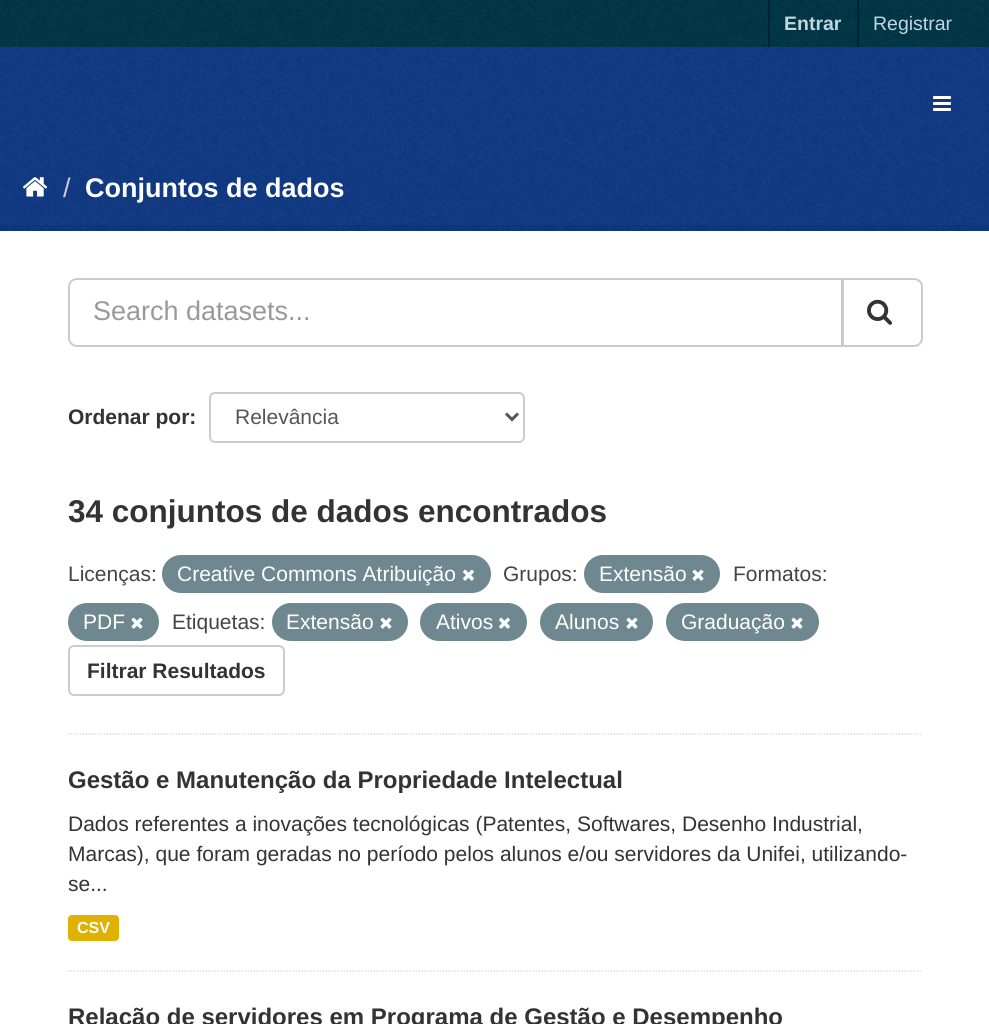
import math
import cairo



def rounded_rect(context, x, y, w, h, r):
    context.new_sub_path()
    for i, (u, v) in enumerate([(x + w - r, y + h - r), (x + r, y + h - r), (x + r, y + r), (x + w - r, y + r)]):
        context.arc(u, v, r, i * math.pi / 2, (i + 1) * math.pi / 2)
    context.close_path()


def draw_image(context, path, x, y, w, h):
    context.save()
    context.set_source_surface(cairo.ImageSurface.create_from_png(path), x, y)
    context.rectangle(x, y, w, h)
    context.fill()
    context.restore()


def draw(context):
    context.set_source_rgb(16 / 255, 58 / 255, 132 / 255)
    context.paint()
    draw_image(context, "images/1.png", 0, 162, 989, 69)
    context.set_source_rgb(0, 54 / 255, 71 / 255)
    context.rectangle(0, 0, 989, 47)
    context.fill()
    draw_image(context, "images/2.png", 0, 0, 989, 46)
    context.set_source_rgb(0, 35 / 255, 46 / 255)
    context.rectangle(768, 0, 2, 47)
    context.fill()
    context.rectangle(857, 0, 2, 47)
    context.fill()
    draw_image(context, "images/3.png", 0, 47, 989, 115)
    draw_image(context, "images/4.png", 933, 96, 18, 15)
    draw_image(context, "images/5.png", 23, 177, 25, 20)
    context.rectangle(-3, 228, 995, 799)
    context.set_source_rgba(0, 0, 0, 0.05)
    context.set_line_width(6)
    context.stroke()
    context.set_source_rgb(1, 1, 1)
    context.rectangle(0, 231, 989, 793)
    context.fill()
    context.new_path()
    context.move_to(67.5, 734)
    context.line_to(922.5, 734)
    context.set_source_rgb(221 / 255, 221 / 255, 221 / 255)
    context.set_line_width(1.5)
    context.set_dash([1.5, 1.5])
    context.stroke()
    context.new_path()
    context.move_to(77, 279)
    context.line_to(842, 279)
    context.line_to(842, 346)
    context.line_to(77, 346)
    context.curve_to(72.5, 346, 69, 342.5, 69, 338)
    context.line_to(69, 287)
    context.curve_to(69, 282.5, 72.5, 279, 77, 279)
    context.close_path()
    context.set_source_rgb(204 / 255, 204 / 255, 204 / 255)
    context.set_line_width(2)
    context.set_dash([])
    context.stroke()
    context.set_source_rgb(1, 1, 1)
    context.new_path()
    context.move_to(843, 279)
    context.line_to(914, 279)
    context.curve_to(918.5, 279, 922, 282.5, 922, 287)
    context.line_to(922, 338)
    context.curve_to(922, 342.5, 918.5, 346, 914, 346)
    context.line_to(843, 346)
    context.close_path()
    context.fill_preserve()
    context.set_source_rgb(204 / 255, 204 / 255, 204 / 255)
    context.stroke()
    draw_image(context, "images/6.png", 867, 299, 25, 26)
    context.set_source_rgb(236 / 255, 236 / 255, 236 / 255)
    context.new_path()
    context.move_to(214, 394)
    context.line_to(519, 394)
    context.curve_to(521, 394, 524, 397, 524, 399)
    context.curve_to(524, 396, 522, 393, 519, 393)
    context.line_to(215, 393)
    context.curve_to(212, 393, 210, 396, 210, 399)
    context.curve_to(210, 397, 212, 394, 214, 394)
    context.close_path()
    context.fill()
    rounded_rect(context, 210, 393, 314, 49, 5)
    context.set_source_rgb(204 / 255, 204 / 255, 204 / 255)
    context.stroke()
    context.new_path()
    context.move_to(506, 413.5)
    context.line_to(512, 419.5)
    context.line_to(518, 413.5)
    context.set_source_rgb(85 / 255, 85 / 255, 85 / 255)
    context.set_line_width(3)
    context.stroke()
    context.set_source_rgb(111 / 255, 136 / 255, 144 / 255)
    rounded_rect(context, 162, 555, 329, 38, 19)
    context.fill()
    draw_image(context, "images/7.png", 463, 569, 11, 12)
    rounded_rect(context, 584, 555, 136, 38, 19)
    context.fill()
    draw_image(context, "images/8.png", 692, 569, 12, 12)
    rounded_rect(context, 68, 603, 91, 38, 19)
    context.fill()
    draw_image(context, "images/8.png", 131, 617, 12, 12)
    rounded_rect(context, 272, 603, 136, 38, 19)
    context.fill()
    draw_image(context, "images/8.png", 380, 617, 12, 12)
    rounded_rect(context, 420, 603, 107, 38, 19)
    context.fill()
    draw_image(context, "images/7.png", 499, 617, 11, 12)
    rounded_rect(context, 540, 603, 113, 38, 19)
    context.fill()
    draw_image(context, "images/8.png", 626, 617, 12, 12)
    rounded_rect(context, 666, 603, 153, 38, 19)
    context.fill()
    draw_image(context, "images/8.png", 791, 617, 12, 12)
    rounded_rect(context, 69, 646, 215, 49, 5)
    context.set_source_rgb(204 / 255, 204 / 255, 204 / 255)
    context.set_line_width(2)
    context.stroke()
    context.new_path()
    context.move_to(67.5, 971)
    context.line_to(922.5, 971)
    context.set_source_rgb(221 / 255, 221 / 255, 221 / 255)
    context.set_line_width(1.5)
    context.set_dash([1.5, 1.5])
    context.stroke()
    context.set_source_rgb(223 / 255, 177 / 255, 0)
    rounded_rect(context, 68, 915, 51, 26, 4)
    context.fill()
    context.select_font_face("Liberation Sans", cairo.FontSlant.NORMAL, cairo.FontWeight.BOLD)
    context.set_font_size(19.5)
    context.set_source_rgb(191 / 255, 215 / 255, 222 / 255)
    context.move_to(784, 30)
    context.show_text("Entrar")
    context.select_font_face("Liberation Sans")
    context.move_to(873, 30)
    context.show_text("Registrar")
    context.set_font_size(27)
    context.set_source_rgb(204 / 255, 204 / 255, 204 / 255)
    context.move_to(63, 197)
    context.show_text("/")
    context.select_font_face("Liberation Sans", cairo.FontSlant.NORMAL, cairo.FontWeight.BOLD)
    context.set_source_rgb(1, 1, 1)
    context.move_to(85, 197)
    context.show_text("Conjuntos de dados")
    context.select_font_face("Liberation Sans")
    context.set_source_rgb(153 / 255, 153 / 255, 153 / 255)
    context.move_to(93, 320)
    context.show_text("Search datasets...")
    context.select_font_face("Liberation Sans", cairo.FontSlant.NORMAL, cairo.FontWeight.BOLD)
    context.set_font_size(21)
    context.set_source_rgb(51 / 255, 51 / 255, 51 / 255)
    context.move_to(68, 424)
    context.show_text("Ordenar por:")
    context.select_font_face("Liberation Sans")
    context.set_source_rgb(85 / 255, 85 / 255, 85 / 255)
    context.move_to(235, 424)
    context.show_text("Relevância")
    context.select_font_face("Liberation Sans", cairo.FontSlant.NORMAL, cairo.FontWeight.BOLD)
    context.set_font_size(31.5)
    context.set_source_rgb(51 / 255, 51 / 255, 51 / 255)
    context.move_to(68, 522)
    context.show_text("34 conjuntos de dados encontrados")
    context.select_font_face("Liberation Sans")
    context.set_font_size(21)
    context.set_source_rgb(68 / 255, 68 / 255, 68 / 255)
    context.move_to(68, 581)
    context.show_text("Licenças:")
    context.set_source_rgb(1, 1, 1)
    context.move_to(177, 581)
    context.show_text("Creative Commons Atribuição")
    context.set_source_rgb(68 / 255, 68 / 255, 68 / 255)
    context.move_to(503, 581)
    context.show_text("Grupos:")
    context.set_source_rgb(1, 1, 1)
    context.move_to(599, 581)
    context.show_text("Extensão")
    context.set_source_rgb(68 / 255, 68 / 255, 68 / 255)
    context.move_to(733, 581)
    context.show_text("Formatos:")
    context.set_source_rgb(1, 1, 1)
    context.move_to(83, 629)
    context.show_text("PDF")
    context.set_source_rgb(68 / 255, 68 / 255, 68 / 255)
    context.move_to(172, 629)
    context.show_text("Etiquetas:")
    context.set_source_rgb(1, 1, 1)
    context.move_to(286, 629)
    context.show_text("Extensão")
    context.move_to(436, 629)
    context.show_text("Ativos")
    context.move_to(555, 629)
    context.show_text("Alunos")
    context.move_to(681, 629)
    context.show_text("Graduação")
    context.select_font_face("Liberation Sans", cairo.FontSlant.NORMAL, cairo.FontWeight.BOLD)
    context.set_source_rgb(51 / 255, 51 / 255, 51 / 255)
    context.move_to(87, 678)
    context.show_text("Filtrar Resultados")
    context.set_font_size(24)
    context.move_to(68, 788)
    context.show_text("Gestão e Manutenção da Propriedade Intelectual")
    context.select_font_face("Liberation Sans")
    context.set_font_size(21)
    context.move_to(68, 831)
    context.show_text("Dados referentes a inovações tecnológicas (Patentes, Softwares, Desenho Industrial,")
    context.move_to(68, 861)
    context.show_text("Marcas), que foram geradas no período pelos alunos e/ou servidores da Unifei, utilizando-")
    context.move_to(68, 891)
    context.show_text("se...")
    context.select_font_face("Liberation Sans", cairo.FontSlant.NORMAL, cairo.FontWeight.BOLD)
    context.set_font_size(16)
    context.set_source_rgb(1, 1, 1)
    context.move_to(77, 933)
    context.show_text("CSV")
    context.set_font_size(24)
    context.set_source_rgb(51 / 255, 51 / 255, 51 / 255)
    context.move_to(68, 1025)
    context.show_text("Relação de servidores em Programa de Gestão e Desempenho")


surface = cairo.ImageSurface(cairo.Format.RGB24, 989, 1024)
context = cairo.Context(surface)
options = cairo.FontOptions()
options.set_hint_metrics(cairo.HintMetrics.OFF)
options.set_hint_style(cairo.HintStyle.NONE)
context.set_font_options(options)
context.set_miter_limit(4)
draw(context)
surface.write_to_png("out.png")
